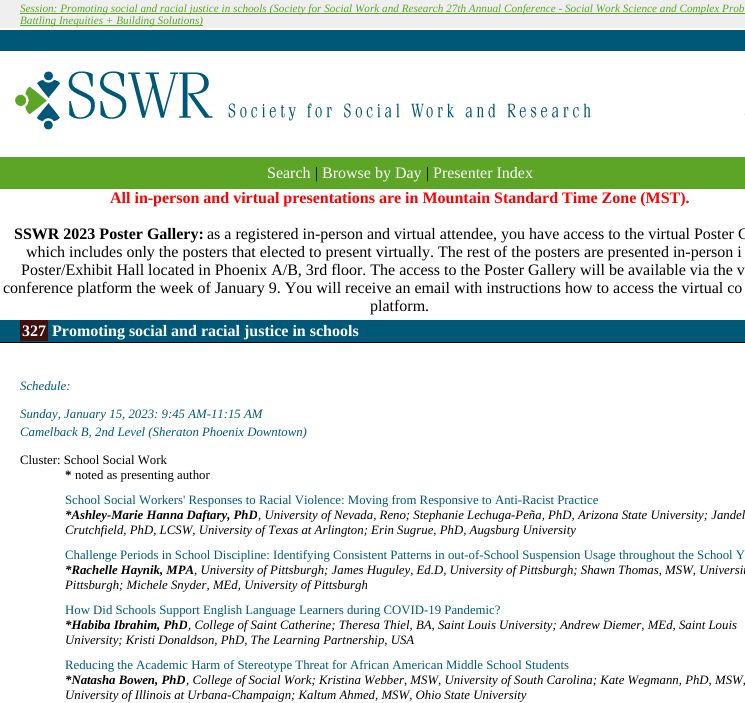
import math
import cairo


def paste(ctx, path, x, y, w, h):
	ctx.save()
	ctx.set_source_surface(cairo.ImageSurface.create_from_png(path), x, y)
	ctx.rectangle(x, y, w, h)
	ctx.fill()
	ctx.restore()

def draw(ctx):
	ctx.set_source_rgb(1, 1, 1)
	ctx.paint()
	ctx.set_source_rgb(0.937, 0.937, 0.937)
	ctx.rectangle(0, 0, 745, 28)
	ctx.fill()
	ctx.set_source_rgb(0.361, 0.647, 0.149)
	ctx.rectangle(20, 13, 725, 1)
	ctx.fill()
	ctx.select_font_face('Liberation Serif', cairo.FONT_SLANT_ITALIC)
	ctx.set_font_size(11.2)
	ctx.move_to(20, 12)
	ctx.show_text('Session: Promoting social and racial justice in schools (Society for Social Work and Research 27th Annual Conference - Social Work Science and Complex Probl')
	ctx.rectangle(20, 25, 183, 1)
	ctx.fill()
	ctx.move_to(20, 24)
	ctx.show_text('Battling Inequities + Building Solutions)')
	paste(ctx, 'media/1.png', 0, 30, 745, 100)
	ctx.rectangle(0, 157, 745, 32)
	ctx.fill()
	ctx.select_font_face('Liberation Serif')
	ctx.set_font_size(16)
	ctx.set_source_rgb(1, 1, 1)
	ctx.move_to(267, 178)
	ctx.show_text('Search')
	ctx.set_source_rgb(0, 0, 0)
	ctx.move_to(315, 178)
	ctx.show_text('|')
	ctx.set_source_rgb(1, 1, 1)
	ctx.move_to(322, 178)
	ctx.show_text('Browse by Day')
	ctx.set_source_rgb(0, 0, 0)
	ctx.move_to(426, 178)
	ctx.show_text('|')
	ctx.set_source_rgb(1, 1, 1)
	ctx.move_to(433, 178)
	ctx.show_text('Presenter Index')
	ctx.select_font_face('Liberation Serif', cairo.FONT_SLANT_NORMAL, cairo.FONT_WEIGHT_BOLD)
	ctx.set_source_rgb(1, 0, 0)
	ctx.move_to(110, 203)
	ctx.show_text('All in-person and virtual presentations are in Mountain Standard Time Zone (MST).')
	ctx.set_source_rgb(0, 0, 0)
	ctx.move_to(14, 239)
	ctx.show_text('SSWR 2023 Poster Gallery:')
	ctx.select_font_face('Liberation Serif')
	for x, y, s in [
		(207, 239, 'as a registered in-person and virtual attendee, you have access to the virtual Poster G'),
		(26, 257, 'which includes only the posters that elected to present virtually. The rest of the posters are presented in-person i'),
		(21, 275, 'Poster/Exhibit Hall located in Phoenix A/B, 3rd floor. The access to the Poster Gallery will be available via the v'),
		(3, 293, 'conference platform the week of January 9. You will receive an email with instructions how to access the virtual co'),
		(370, 311, 'platform.'),
	]:
		ctx.move_to(x, y)
		ctx.show_text(s)
	ctx.set_source_rgb(0, 0.345, 0.475)
	ctx.rectangle(0, 320, 745, 22)
	ctx.fill()
	ctx.set_source_rgb(0, 0, 0)
	ctx.rectangle(0, 342, 745, 1)
	ctx.fill()
	ctx.set_source_rgb(0.251, 0.063, 0.063)
	ctx.rectangle(20, 320, 28, 21)
	ctx.fill()
	ctx.select_font_face('Liberation Serif', cairo.FONT_SLANT_NORMAL, cairo.FONT_WEIGHT_BOLD)
	ctx.set_source_rgb(1, 1, 1)
	ctx.move_to(22, 336)
	ctx.show_text('327')
	ctx.move_to(52, 336)
	ctx.show_text('Promoting social and racial justice in schools')
	ctx.select_font_face('Liberation Serif', cairo.FONT_SLANT_ITALIC)
	ctx.set_font_size(12.8)
	ctx.set_source_rgb(0, 0.345, 0.475)
	for x, y, s in [
		(20, 390, 'Schedule:'),
		(20, 418, 'Sunday, January 15, 2023: 9:45 AM-11:15 AM'),
		(20, 436, 'Camelback B, 2nd Level (Sheraton Phoenix Downtown)'),
	]:
		ctx.move_to(x, y)
		ctx.show_text(s)
	ctx.select_font_face('Liberation Serif')
	ctx.set_source_rgb(0, 0, 0)
	ctx.move_to(20, 464)
	ctx.show_text('Cluster: School Social Work')
	ctx.select_font_face('Liberation Serif', cairo.FONT_SLANT_NORMAL, cairo.FONT_WEIGHT_BOLD)
	ctx.move_to(65, 479)
	ctx.show_text('*')
	ctx.select_font_face('Liberation Serif')
	ctx.move_to(75, 479)
	ctx.show_text('noted as presenting author')
	ctx.set_source_rgb(0, 0.345, 0.475)
	ctx.move_to(65, 504)
	ctx.show_text('School Social Workers\' Responses to Racial Violence: Moving from Responsive to Anti-Racist Practice')
	ctx.select_font_face('Liberation Serif', cairo.FONT_SLANT_ITALIC, cairo.FONT_WEIGHT_BOLD)
	ctx.set_source_rgb(0, 0, 0)
	ctx.move_to(65, 519)
	ctx.show_text('*Ashley-Marie Hanna Daftary, PhD')
	ctx.select_font_face('Liberation Serif', cairo.FONT_SLANT_ITALIC)
	ctx.move_to(258, 519)
	ctx.show_text(', University of Nevada, Reno; Stephanie Lechuga-Peña, PhD, Arizona State University; Jandel')
	ctx.move_to(65, 534)
	ctx.show_text('Crutchfield, PhD, LCSW, University of Texas at Arlington; Erin Sugrue, PhD, Augsburg University')
	ctx.select_font_face('Liberation Serif')
	ctx.set_source_rgb(0, 0.345, 0.475)
	ctx.move_to(65, 559)
	ctx.show_text('Challenge Periods in School Discipline: Identifying Consistent Patterns in out-of-School Suspension Usage throughout the School Y')
	ctx.select_font_face('Liberation Serif', cairo.FONT_SLANT_ITALIC, cairo.FONT_WEIGHT_BOLD)
	ctx.set_source_rgb(0, 0, 0)
	ctx.move_to(65, 574)
	ctx.show_text('*Rachelle Haynik, MPA')
	ctx.select_font_face('Liberation Serif', cairo.FONT_SLANT_ITALIC)
	ctx.move_to(194, 574)
	ctx.show_text(', University of Pittsburgh; James Huguley, Ed.D, University of Pittsburgh; Shawn Thomas, MSW, Universit')
	ctx.move_to(65, 589)
	ctx.show_text('Pittsburgh; Michele Snyder, MEd, University of Pittsburgh')
	ctx.select_font_face('Liberation Serif')
	ctx.set_source_rgb(0, 0.345, 0.475)
	ctx.move_to(65, 614)
	ctx.show_text('How Did Schools Support English Language Learners during COVID-19 Pandemic?')
	ctx.select_font_face('Liberation Serif', cairo.FONT_SLANT_ITALIC, cairo.FONT_WEIGHT_BOLD)
	ctx.set_source_rgb(0, 0, 0)
	ctx.move_to(65, 629)
	ctx.show_text('*Habiba Ibrahim, PhD')
	ctx.select_font_face('Liberation Serif', cairo.FONT_SLANT_ITALIC)
	ctx.move_to(188, 629)
	ctx.show_text(', College of Saint Catherine; Theresa Thiel, BA, Saint Louis University; Andrew Diemer, MEd, Saint Louis')
	ctx.move_to(65, 644)
	ctx.show_text('University; Kristi Donaldson, PhD, The Learning Partnership, USA')
	ctx.select_font_face('Liberation Serif')
	ctx.set_source_rgb(0, 0.345, 0.475)
	ctx.move_to(65, 669)
	ctx.show_text('Reducing the Academic Harm of Stereotype Threat for African American Middle School Students')
	ctx.select_font_face('Liberation Serif', cairo.FONT_SLANT_ITALIC, cairo.FONT_WEIGHT_BOLD)
	ctx.set_source_rgb(0, 0, 0)
	ctx.move_to(65, 684)
	ctx.show_text('*Natasha Bowen, PhD')
	ctx.select_font_face('Liberation Serif', cairo.FONT_SLANT_ITALIC)
	ctx.move_to(186, 684)
	ctx.show_text(', College of Social Work; Kristina Webber, MSW, University of South Carolina; Kate Wegmann, PhD, MSW,')
	ctx.move_to(65, 699)
	ctx.show_text('University of Illinois at Urbana-Champaign; Kaltum Ahmed, MSW, Ohio State University')


surface = cairo.ImageSurface(cairo.FORMAT_RGB24, 745, 703)
ctx = cairo.Context(surface)
options = cairo.FontOptions()
options.set_hint_metrics(cairo.HINT_METRICS_OFF)
options.set_hint_style(cairo.HINT_STYLE_NONE)
ctx.set_font_options(options)
ctx.set_miter_limit(4)
draw(ctx)
surface.write_to_png('image.png')
